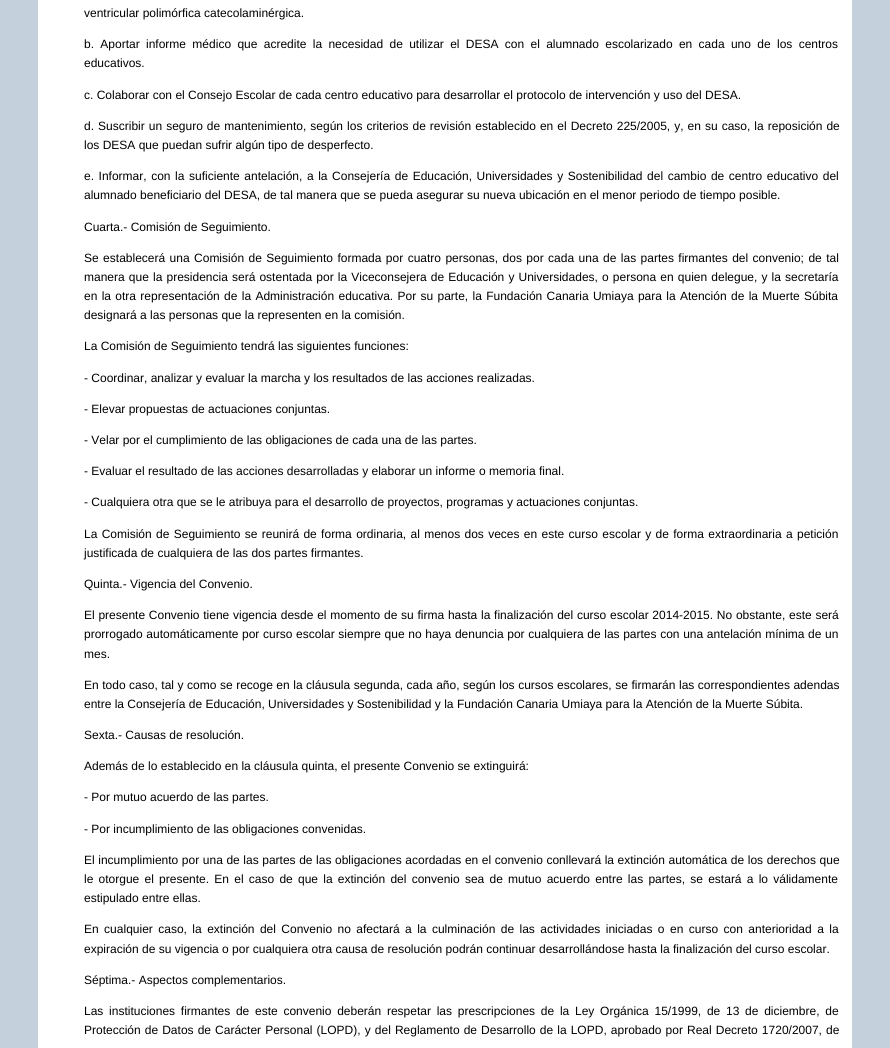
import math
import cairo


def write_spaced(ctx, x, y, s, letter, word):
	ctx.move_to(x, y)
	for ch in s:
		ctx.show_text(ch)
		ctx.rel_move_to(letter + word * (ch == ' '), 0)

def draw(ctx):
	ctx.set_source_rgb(0.769, 0.816, 0.863)
	ctx.paint()
	ctx.set_source_rgb(1, 1, 1)
	ctx.rectangle(38, 0, 814, 1048)
	ctx.fill()
	ctx.select_font_face('Liberation Sans')
	ctx.set_font_size(12)
	ctx.set_source_rgb(0, 0, 0)
	ctx.move_to(84, 17)
	ctx.show_text('ventricular polimórfica catecolaminérgica.')
	write_spaced(ctx, 84, 48, 'b. Aportar informe médico que acredite la necesidad de utilizar el DESA con el alumnado escolarizado en cada uno de los centros', 0, 3)
	ctx.move_to(84, 67)
	ctx.show_text('educativos.')
	ctx.move_to(84, 99)
	ctx.show_text('c. Colaborar con el Consejo Escolar de cada centro educativo para desarrollar el protocolo de intervención y uso del DESA.')
	write_spaced(ctx, 84, 130, 'd. Suscribir un seguro de mantenimiento, según los criterios de revisión establecido en el Decreto 225/2005, y, en su caso, la reposición de', 0, 0.7)
	ctx.move_to(84, 149)
	ctx.show_text('los DESA que puedan sufrir algún tipo de desperfecto.')
	write_spaced(ctx, 84, 180, 'e. Informar, con la suficiente antelación, a la Consejería de Educación, Universidades y Sostenibilidad del cambio de centro educativo del', 0, 1.25)
	ctx.move_to(84, 199)
	ctx.show_text('alumnado beneficiario del DESA, de tal manera que se pueda asegurar su nueva ubicación en el menor periodo de tiempo posible.')
	ctx.move_to(84, 231)
	ctx.show_text('Cuarta.- Comisión de Seguimiento.')
	write_spaced(ctx, 84, 262, 'Se establecerá una Comisión de Seguimiento formada por cuatro personas, dos por cada una de las partes firmantes del convenio; de tal', 0, 1.1)
	write_spaced(ctx, 84, 281, 'manera que la presidencia será ostentada por la Viceconsejera de Educación y Universidades, o persona en quien delegue, y la secretaría', 0, 0.8)
	write_spaced(ctx, 84, 300, 'en la otra representación de la Administración educativa. Por su parte, la Fundación Canaria Umiaya para la Atención de la Muerte Súbita', 0, 1)
	for x, y, s in [
		(84, 319, 'designará a las personas que la representen en la comisión.'),
		(84, 350, 'La Comisión de Seguimiento tendrá las siguientes funciones:'),
		(84, 382, '- Coordinar, analizar y evaluar la marcha y los resultados de las acciones realizadas.'),
		(84, 413, '- Elevar propuestas de actuaciones conjuntas.'),
		(84, 444, '- Velar por el cumplimiento de las obligaciones de cada una de las partes.'),
		(84, 475, '- Evaluar el resultado de las acciones desarrolladas y elaborar un informe o memoria final.'),
		(84, 506, '- Cualquiera otra que se le atribuya para el desarrollo de proyectos, programas y actuaciones conjuntas.'),
	]:
		ctx.move_to(x, y)
		ctx.show_text(s)
	write_spaced(ctx, 84, 538, 'La Comisión de Seguimiento se reunirá de forma ordinaria, al menos dos veces en este curso escolar y de forma extraordinaria a petición', 0, 1)
	ctx.move_to(84, 557)
	ctx.show_text('justificada de cualquiera de las dos partes firmantes.')
	ctx.move_to(84, 588)
	ctx.show_text('Quinta.- Vigencia del Convenio.')
	write_spaced(ctx, 84, 619, 'El presente Convenio tiene vigencia desde el momento de su firma hasta la finalización del curso escolar 2014-2015. No obstante, este será', 0, 0.4)
	write_spaced(ctx, 84, 638, 'prorrogado automáticamente por curso escolar siempre que no haya denuncia por cualquiera de las partes con una antelación mínima de un', 0, 0.3)
	ctx.move_to(84, 658)
	ctx.show_text('mes.')
	write_spaced(ctx, 84, 689, 'En todo caso, tal y como se recoge en la cláusula segunda, cada año, según los cursos escolares, se firmarán las correspondientes adendas', 0, 0.2)
	for x, y, s in [
		(84, 708, 'entre la Consejería de Educación, Universidades y Sostenibilidad y la Fundación Canaria Umiaya para la Atención de la Muerte Súbita.'),
		(84, 739, 'Sexta.- Causas de resolución.'),
		(84, 770, 'Además de lo establecido en la cláusula quinta, el presente Convenio se extinguirá:'),
		(84, 801, '- Por mutuo acuerdo de las partes.'),
		(84, 833, '- Por incumplimiento de las obligaciones convenidas.'),
	]:
		ctx.move_to(x, y)
		ctx.show_text(s)
	write_spaced(ctx, 84, 864, 'El incumplimiento por una de las partes de las obligaciones acordadas en el convenio conllevará la extinción automática de los derechos que', 0, 0.25)
	write_spaced(ctx, 84, 883, 'le otorgue el presente. En el caso de que la extinción del convenio sea de mutuo acuerdo entre las partes, se estará a lo válidamente', 0, 1.9)
	ctx.move_to(84, 902)
	ctx.show_text('estipulado entre ellas.')
	write_spaced(ctx, 84, 933, 'En cualquier caso, la extinción del Convenio no afectará a la culminación de las actividades iniciadas o en curso con anterioridad a la', 0, 2.1)
	ctx.move_to(84, 953)
	ctx.show_text('expiración de su vigencia o por cualquiera otra causa de resolución podrán continuar desarrollándose hasta la finalización del curso escolar.')
	ctx.move_to(84, 984)
	ctx.show_text('Séptima.- Aspectos complementarios.')
	write_spaced(ctx, 84, 1015, 'Las instituciones firmantes de este convenio deberán respetar las prescripciones de la Ley Orgánica 15/1999, de 13 de diciembre, de', 0, 2.4)
	write_spaced(ctx, 84, 1034, 'Protección de Datos de Carácter Personal (LOPD), y del Reglamento de Desarrollo de la LOPD, aprobado por Real Decreto 1720/2007, de', 0, 0.75)


surface = cairo.ImageSurface(cairo.FORMAT_RGB24, 890, 1048)
ctx = cairo.Context(surface)
options = cairo.FontOptions()
options.set_hint_metrics(cairo.HINT_METRICS_OFF)
options.set_hint_style(cairo.HINT_STYLE_NONE)
ctx.set_font_options(options)
ctx.set_miter_limit(4)
draw(ctx)
surface.write_to_png('image.png')
